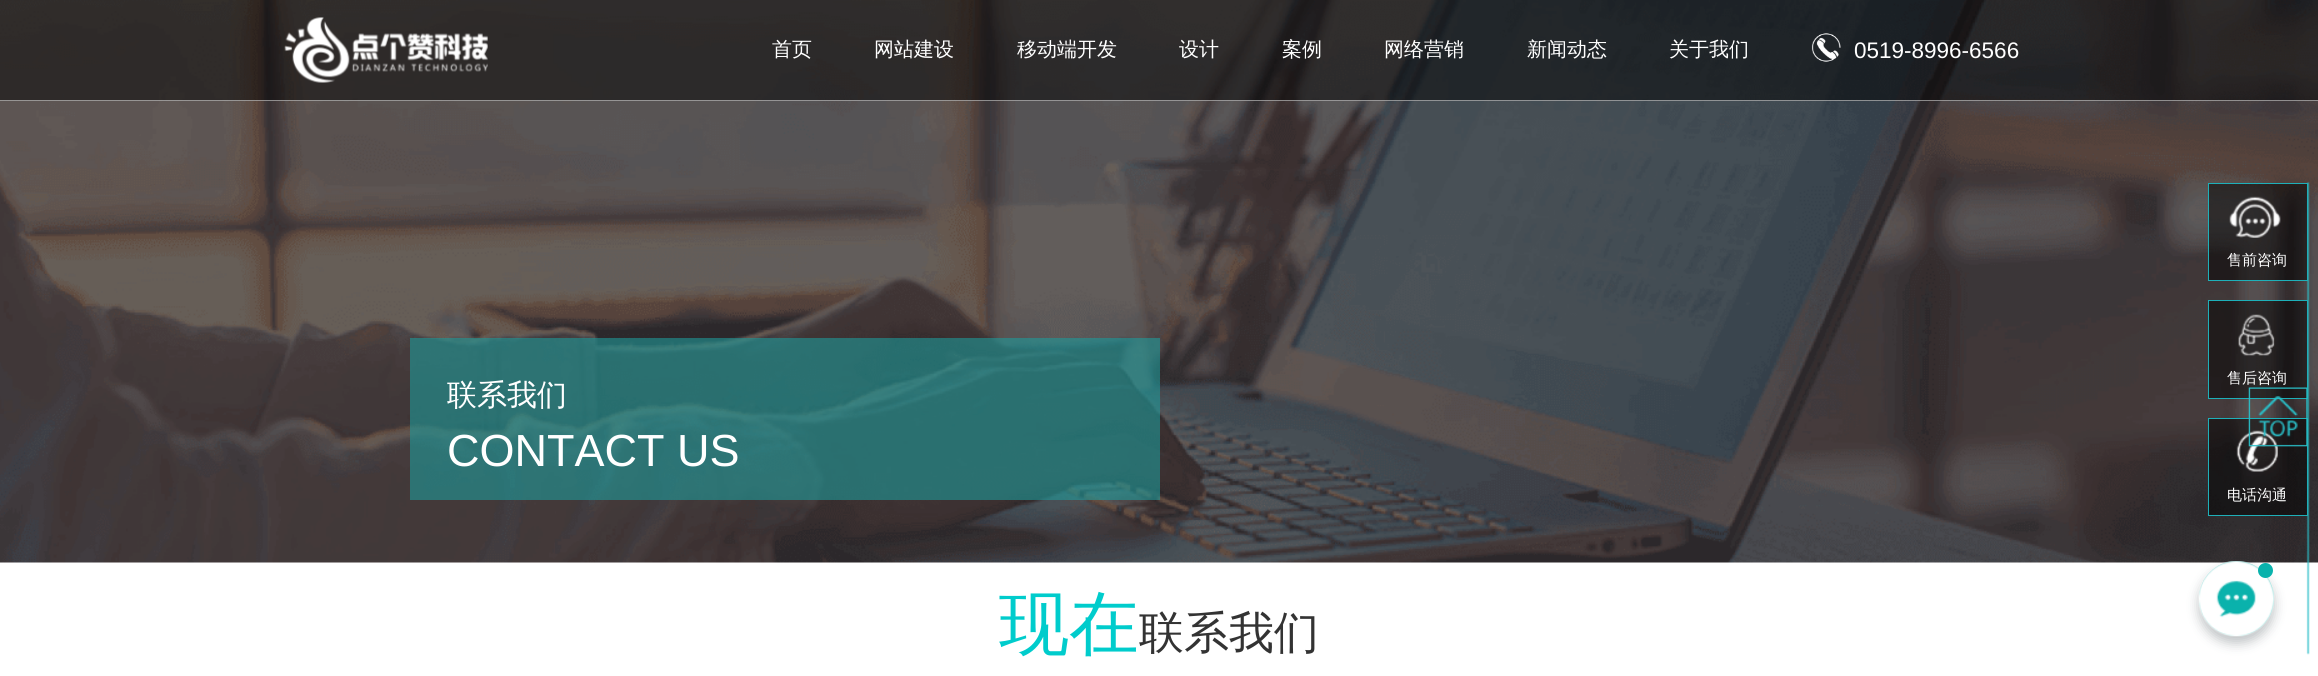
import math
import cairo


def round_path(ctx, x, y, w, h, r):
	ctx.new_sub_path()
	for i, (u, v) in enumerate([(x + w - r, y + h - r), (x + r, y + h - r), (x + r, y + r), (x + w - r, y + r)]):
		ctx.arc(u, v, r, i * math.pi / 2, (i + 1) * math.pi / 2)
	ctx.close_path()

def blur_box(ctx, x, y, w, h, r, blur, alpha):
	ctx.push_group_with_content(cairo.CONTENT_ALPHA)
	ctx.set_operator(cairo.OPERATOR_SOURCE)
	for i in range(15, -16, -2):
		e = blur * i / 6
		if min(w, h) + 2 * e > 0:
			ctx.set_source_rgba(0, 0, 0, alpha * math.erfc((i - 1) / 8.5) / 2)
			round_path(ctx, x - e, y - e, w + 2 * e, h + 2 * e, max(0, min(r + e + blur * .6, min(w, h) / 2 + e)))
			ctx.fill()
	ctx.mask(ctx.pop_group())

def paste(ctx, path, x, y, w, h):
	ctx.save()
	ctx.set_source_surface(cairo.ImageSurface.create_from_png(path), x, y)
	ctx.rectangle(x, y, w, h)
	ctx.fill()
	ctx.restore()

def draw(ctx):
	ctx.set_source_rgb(1, 1, 1)
	ctx.paint()
	paste(ctx, 'media/3.png', 0, 0, 2318, 563)
	ctx.set_source_rgba(0, 0, 0, 0.5)
	ctx.rectangle(0, 0, 2318, 101)
	ctx.fill()
	ctx.set_source_rgba(1, 1, 1, 0.5)
	ctx.rectangle(0, 100, 2318, 1)
	ctx.fill()
	paste(ctx, 'media/1.png', 284, 17, 204, 66)
	ctx.select_font_face('WenQuanYi Zen Hei Medium')
	ctx.set_font_size(20)
	ctx.set_source_rgb(1, 1, 1)
	for x, y, s in [
		(772, 56, '首页'),
		(874, 56, '网站建设'),
		(1017, 56, '移动端开发'),
		(1179, 56, '设计'),
		(1282, 56, '案例'),
		(1384, 56, '网络营销'),
		(1527, 56, '新闻动态'),
		(1669, 56, '关于我们'),
	]:
		ctx.move_to(x, y)
		ctx.show_text(s)
	paste(ctx, 'media/2.png', 1811, 33, 30, 29)
	ctx.select_font_face('Liberation Sans')
	ctx.set_font_size(22.5)
	ctx.move_to(1854, 58)
	ctx.show_text('0519-8996-6566')
	ctx.set_source_rgba(0.118, 0.6, 0.6, 0.6)
	ctx.rectangle(410, 338, 750, 162)
	ctx.fill()
	ctx.select_font_face('WenQuanYi Zen Hei Medium')
	ctx.set_font_size(30)
	ctx.set_source_rgb(1, 1, 1)
	ctx.move_to(447, 405)
	ctx.show_text('联系我们')
	ctx.select_font_face('Liberation Sans')
	ctx.set_font_size(45)
	ctx.move_to(447, 466)
	ctx.show_text('CONTACT US')
	paste(ctx, 'media/7.png', 2306, 182, 4, 473)
	ctx.set_source_rgba(0, 0, 0, 0.5)
	ctx.rectangle(2208.5, 183.5, 99, 97)
	ctx.fill_preserve()
	ctx.set_source_rgb(0.118, 0.69, 0.725)
	ctx.set_line_width(1)
	ctx.stroke()
	paste(ctx, 'media/4.png', 2229, 196, 52, 42)
	ctx.select_font_face('WenQuanYi Zen Hei Medium')
	ctx.set_font_size(15)
	ctx.set_source_rgb(1, 1, 1)
	ctx.move_to(2227, 265)
	ctx.show_text('售前咨询')
	ctx.set_source_rgba(0, 0, 0, 0.5)
	ctx.rectangle(2208.5, 300.5, 99, 98)
	ctx.fill_preserve()
	ctx.set_source_rgb(0.118, 0.69, 0.725)
	ctx.stroke()
	paste(ctx, 'media/5.png', 2238, 314, 37, 42)
	ctx.set_source_rgb(1, 1, 1)
	ctx.move_to(2227, 383)
	ctx.show_text('售后咨询')
	ctx.set_source_rgba(0, 0, 0, 0.5)
	ctx.rectangle(2208.5, 418.5, 99, 97)
	ctx.fill_preserve()
	ctx.set_source_rgb(0.118, 0.69, 0.725)
	ctx.stroke()
	paste(ctx, 'media/6.png', 2236, 430, 42, 42)
	ctx.set_source_rgb(1, 1, 1)
	ctx.move_to(2227, 500)
	ctx.show_text('电话沟通')
	paste(ctx, 'media/8.png', 2248, 387, 60, 60)
	ctx.set_font_size(70)
	ctx.set_source_rgb(0, 0.8, 0.8)
	ctx.move_to(999, 648)
	ctx.show_text('现在')
	ctx.set_font_size(45)
	ctx.set_source_rgb(0.2, 0.2, 0.2)
	ctx.move_to(1139, 648)
	ctx.show_text('联系我们')
	ctx.save()
	ctx.set_fill_rule(cairo.FILL_RULE_EVEN_ODD)
	ctx.new_path()
	ctx.move_to(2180, 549)
	ctx.line_to(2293, 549)
	ctx.line_to(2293, 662)
	ctx.line_to(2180, 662)
	ctx.close_path()
	ctx.move_to(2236.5, 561)
	ctx.curve_to(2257, 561, 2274, 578, 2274, 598.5)
	ctx.curve_to(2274, 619, 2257, 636, 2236.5, 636)
	ctx.curve_to(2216, 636, 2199, 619, 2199, 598.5)
	ctx.curve_to(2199, 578, 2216, 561, 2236.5, 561)
	ctx.close_path()
	ctx.clip()
	ctx.set_source_rgb(0.137, 0.196, 0.22)
	blur_box(ctx, 2199, 568, 75, 75, 37.5, 6, 0.3)
	ctx.restore()
	ctx.set_source_rgba(0.043, 0.698, 0.671, 0.25)
	ctx.arc(2236.5, 598.5, 37.5, 0, 2 * math.pi)
	ctx.fill()
	ctx.arc(2236.5, 598.5, 37.5, 0, 2 * math.pi)
	ctx.fill()
	ctx.arc(2236.5, 598.5, 37.5, 0, 2 * math.pi)
	ctx.fill()
	paste(ctx, 'media/9.png', 2198, 561, 76, 76)
	ctx.set_source_rgb(0.039, 0.698, 0.675)
	ctx.arc(2265.5, 570.5, 7.5, 0, 2 * math.pi)
	ctx.fill()


surface = cairo.ImageSurface(cairo.FORMAT_RGB24, 2318, 676)
ctx = cairo.Context(surface)
options = cairo.FontOptions()
options.set_hint_metrics(cairo.HINT_METRICS_OFF)
options.set_hint_style(cairo.HINT_STYLE_NONE)
ctx.set_font_options(options)
ctx.set_miter_limit(4)
draw(ctx)
surface.write_to_png('image.png')
